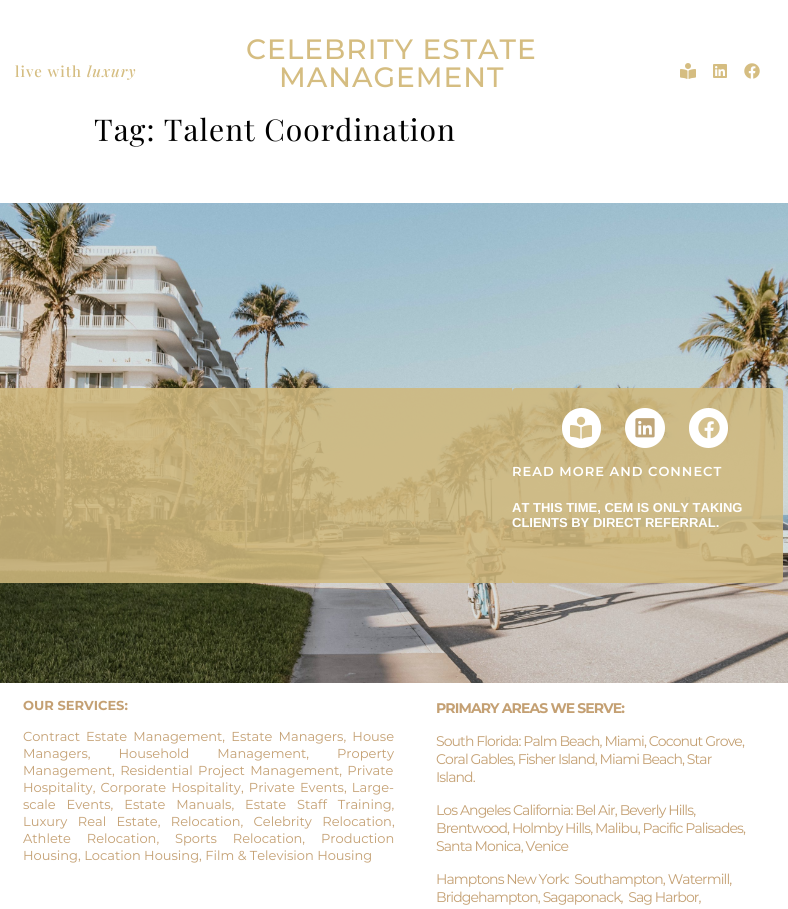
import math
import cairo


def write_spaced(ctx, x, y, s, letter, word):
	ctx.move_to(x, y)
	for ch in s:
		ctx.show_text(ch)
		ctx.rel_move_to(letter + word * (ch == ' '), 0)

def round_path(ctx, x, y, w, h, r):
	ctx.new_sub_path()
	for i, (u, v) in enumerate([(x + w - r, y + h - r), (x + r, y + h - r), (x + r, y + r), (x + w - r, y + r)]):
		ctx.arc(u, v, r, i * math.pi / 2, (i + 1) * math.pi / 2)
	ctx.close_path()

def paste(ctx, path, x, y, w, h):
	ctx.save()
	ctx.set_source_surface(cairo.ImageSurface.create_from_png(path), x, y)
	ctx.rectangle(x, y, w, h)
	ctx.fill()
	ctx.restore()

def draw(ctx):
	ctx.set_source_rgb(1, 1, 1)
	ctx.paint()
	ctx.select_font_face('Playfair Display Medium')
	ctx.set_font_size(15)
	ctx.set_source_rgb(0.835, 0.741, 0.506)
	write_spaced(ctx, 15, 77, 'live with', 1, 0)
	ctx.select_font_face('Playfair Display Medium', cairo.FONT_SLANT_ITALIC)
	write_spaced(ctx, 87, 77, 'luxury', 1, 0)
	ctx.select_font_face('Montserrat Medium')
	ctx.set_font_size(28)
	write_spaced(ctx, 246, 59, 'CELEBRITY ESTATE', 1, 0)
	write_spaced(ctx, 279, 87, 'MANAGEMENT', 1, 0)
	paste(ctx, 'media/1.png', 680, 63, 16, 16)
	paste(ctx, 'media/2.png', 713, 64, 14, 14)
	paste(ctx, 'media/3.png', 744, 63, 16, 16)
	ctx.select_font_face('Playfair Display')
	ctx.set_font_size(30)
	ctx.set_source_rgb(0, 0, 0)
	write_spaced(ctx, 94, 141, 'Tag: Talent Coordination', 1, 0)
	paste(ctx, 'media/4.png', 0, 203, 788, 480)
	ctx.set_source_rgba(0.812, 0.722, 0.486, 0.87)
	ctx.rectangle(0, 388, 260, 195)
	ctx.fill()
	ctx.rectangle(260, 388, 252, 195)
	ctx.fill()
	round_path(ctx, 512, 388, 271, 195, 4)
	ctx.fill()
	ctx.set_source_rgb(1, 1, 1)
	round_path(ctx, 562, 408, 39, 40, 19.5)
	ctx.fill()
	paste(ctx, 'media/5.png', 570, 416, 22, 23)
	ctx.arc(645, 428, 20, 0, 2 * math.pi)
	ctx.fill()
	paste(ctx, 'media/6.png', 635, 418, 20, 20)
	round_path(ctx, 689, 408, 39, 40, 19.5)
	ctx.fill()
	paste(ctx, 'media/7.png', 698, 417, 22, 22)
	ctx.select_font_face('Montserrat SemiBold')
	ctx.set_font_size(13)
	write_spaced(ctx, 512, 476, 'READ MORE AND CONNECT', 1, 0)
	ctx.select_font_face('Liberation Sans', cairo.FONT_SLANT_NORMAL, cairo.FONT_WEIGHT_BOLD)
	ctx.move_to(512, 512)
	ctx.show_text('AT THIS TIME, CEM IS ONLY TAKING')
	ctx.move_to(512, 527)
	ctx.show_text('CLIENTS BY DIRECT REFERRAL.')
	ctx.select_font_face('Montserrat', cairo.FONT_SLANT_NORMAL, cairo.FONT_WEIGHT_BOLD)
	ctx.set_source_rgb(0.769, 0.627, 0.451)
	ctx.move_to(23, 710)
	ctx.show_text('OUR SERVICES:')
	ctx.select_font_face('Montserrat')
	write_spaced(ctx, 23, 741, 'Contract Estate Management, Estate Managers, House', 0, 2.75)
	write_spaced(ctx, 23, 758, 'Managers, Household Management, Property', 0, 24.5)
	write_spaced(ctx, 23, 775, 'Management, Residential Project Management, Private', 0, 2)
	write_spaced(ctx, 23, 792, 'Hospitality, Corporate Hospitality, Private Events, Large-', 0, 1.75)
	write_spaced(ctx, 23, 809, 'scale Events, Estate Manuals, Estate Staff Training,', 0, 7.5)
	write_spaced(ctx, 23, 826, 'Luxury Real Estate, Relocation, Celebrity Relocation,', 0, 7)
	write_spaced(ctx, 23, 843, 'Athlete Relocation, Sports Relocation, Production', 0, 12.5)
	ctx.move_to(23, 860)
	ctx.show_text('Housing, Location Housing, Film & Television Housing')
	ctx.select_font_face('Montserrat', cairo.FONT_SLANT_NORMAL, cairo.FONT_WEIGHT_BOLD)
	ctx.set_font_size(14)
	write_spaced(ctx, 436, 713, 'PRIMARY AREAS WE SERVE:', -0.9, 0)
	ctx.select_font_face('Montserrat')
	for x, y, s in [
		(436, 746, 'South Florida: Palm Beach, Miami, Coconut Grove,'),
		(436, 764, 'Coral Gables, Fisher Island, Miami Beach, Star'),
		(436, 782, 'Island.'),
		(436, 815, 'Los Angeles California: Bel Air, Beverly Hills,'),
		(436, 833, 'Brentwood, Holmby Hills, Malibu, Pacific Palisades,'),
		(436, 851, 'Santa Monica, Venice'),
		(436, 884, 'Hamptons New York:  Southampton, Watermill,'),
		(436, 902, 'Bridgehampton, Sagaponack,  Sag Harbor,'),
	]:
		write_spaced(ctx, x, y, s, -0.9, 0)


surface = cairo.ImageSurface(cairo.FORMAT_RGB24, 788, 909)
ctx = cairo.Context(surface)
options = cairo.FontOptions()
options.set_hint_metrics(cairo.HINT_METRICS_OFF)
options.set_hint_style(cairo.HINT_STYLE_NONE)
ctx.set_font_options(options)
ctx.set_miter_limit(4)
draw(ctx)
surface.write_to_png('image.png')
